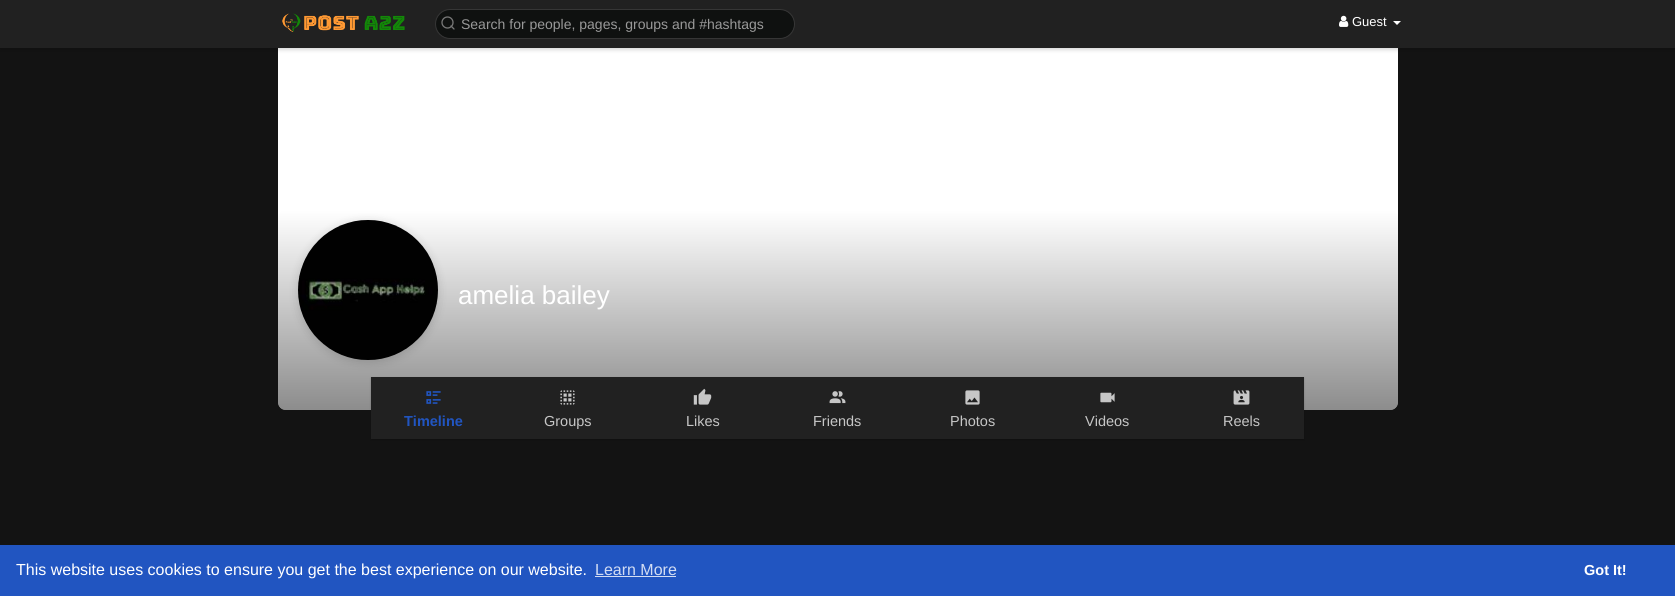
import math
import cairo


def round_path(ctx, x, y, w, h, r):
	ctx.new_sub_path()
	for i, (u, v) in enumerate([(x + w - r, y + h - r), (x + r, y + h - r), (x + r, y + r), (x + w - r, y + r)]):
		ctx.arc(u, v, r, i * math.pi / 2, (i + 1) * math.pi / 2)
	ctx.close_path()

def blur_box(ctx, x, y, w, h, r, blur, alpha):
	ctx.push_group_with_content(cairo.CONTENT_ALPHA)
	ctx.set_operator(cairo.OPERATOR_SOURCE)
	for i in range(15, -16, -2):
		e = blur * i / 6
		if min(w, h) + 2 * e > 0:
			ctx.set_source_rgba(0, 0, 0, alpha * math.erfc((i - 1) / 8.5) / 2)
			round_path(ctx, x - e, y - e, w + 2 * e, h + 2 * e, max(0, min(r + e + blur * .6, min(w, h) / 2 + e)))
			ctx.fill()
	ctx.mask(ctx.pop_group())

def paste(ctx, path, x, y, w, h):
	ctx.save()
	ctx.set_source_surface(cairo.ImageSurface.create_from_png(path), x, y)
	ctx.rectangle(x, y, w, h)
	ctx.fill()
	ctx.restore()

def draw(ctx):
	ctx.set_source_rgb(0.075, 0.075, 0.075)
	ctx.paint()
	ctx.set_source_rgb(1, 1, 1)
	ctx.new_path()
	ctx.move_to(278, 45)
	ctx.line_to(1398, 45)
	ctx.line_to(1398, 402)
	ctx.curve_to(1398, 406.5, 1394.5, 410, 1390, 410)
	ctx.line_to(286, 410)
	ctx.curve_to(281.5, 410, 278, 406.5, 278, 402)
	ctx.close_path()
	ctx.fill()
	ctx.set_source_rgb(0, 0, 0)
	blur_box(ctx, 0, 2, 1675, 48, 0, 2, 0.15)
	ctx.set_source_rgb(0.129, 0.129, 0.129)
	ctx.rectangle(0, 0, 1675, 48)
	ctx.fill()
	paste(ctx, 'media/1.png', 282, 13, 123, 19)
	ctx.set_source_rgb(0.059, 0.067, 0.063)
	round_path(ctx, 435.5, 9.5, 359, 29, 14.5)
	ctx.fill_preserve()
	ctx.set_source_rgb(0.212, 0.212, 0.212)
	ctx.set_line_width(1)
	ctx.stroke()
	ctx.arc(447.5, 22.5, 5.5, 0, 2 * math.pi)
	ctx.set_source_rgb(0.471, 0.471, 0.471)
	ctx.set_line_width(1.3)
	ctx.stroke()
	ctx.new_path()
	ctx.move_to(454, 29)
	ctx.line_to(451, 26)
	ctx.set_line_cap(cairo.LINE_CAP_ROUND)
	ctx.set_line_join(cairo.LINE_JOIN_ROUND)
	ctx.stroke()
	ctx.select_font_face('Liberation Sans')
	ctx.set_font_size(14)
	ctx.set_source_rgb(0.6, 0.6, 0.6)
	ctx.move_to(461, 29)
	ctx.show_text('Search for people, pages, groups and #hashtags')
	paste(ctx, 'media/2.png', 1339, 15, 10, 12)
	ctx.set_font_size(13)
	ctx.set_source_rgb(1, 1, 1)
	ctx.move_to(1352, 26)
	ctx.show_text('Guest')
	ctx.new_path()
	ctx.move_to(1393, 21)
	ctx.line_to(1401, 21)
	ctx.line_to(1397, 25)
	ctx.close_path()
	ctx.fill()
	gradient = cairo.LinearGradient(838, 210, 838, 410)
	gradient.add_color_stop_rgba(0, 0, 0, 0, 0)
	gradient.add_color_stop_rgba(1, 0, 0, 0, 0.45)
	ctx.set_source(gradient)
	round_path(ctx, 278, 210, 1120, 200, 8)
	ctx.fill()
	ctx.set_source_rgb(0, 0, 0)
	blur_box(ctx, 371, 378, 933, 62, 0, 1, 0.2)
	ctx.set_source_rgb(0.129, 0.129, 0.129)
	ctx.rectangle(371, 377, 933, 62)
	ctx.fill()
	ctx.set_source_rgb(0, 0, 0)
	blur_box(ctx, 298, 222, 140, 140, 70, 5, 0.15)
	paste(ctx, 'media/3.png', 298, 220, 140, 140)
	ctx.set_font_size(26)
	ctx.set_source_rgb(1, 1, 1)
	ctx.move_to(458, 304)
	ctx.show_text('amelia bailey')
	paste(ctx, 'media/4.png', 426, 391, 15, 13)
	ctx.select_font_face('Liberation Sans', cairo.FONT_SLANT_NORMAL, cairo.FONT_WEIGHT_BOLD)
	ctx.set_font_size(14.5)
	ctx.set_source_rgb(0.129, 0.333, 0.757)
	ctx.move_to(404, 426)
	ctx.show_text('Timeline')
	paste(ctx, 'media/5.png', 560, 390, 15, 15)
	ctx.select_font_face('Liberation Sans')
	ctx.set_source_rgb(0.776, 0.776, 0.776)
	ctx.move_to(544, 426)
	ctx.show_text('Groups')
	paste(ctx, 'media/6.png', 693, 388, 19, 17)
	ctx.move_to(686, 426)
	ctx.show_text('Likes')
	paste(ctx, 'media/7.png', 829, 391, 17, 13)
	ctx.move_to(813, 426)
	ctx.show_text('Friends')
	paste(ctx, 'media/8.png', 965, 390, 15, 15)
	ctx.move_to(950, 426)
	ctx.show_text('Photos')
	paste(ctx, 'media/9.png', 1100, 392, 15, 11)
	ctx.move_to(1085, 426)
	ctx.show_text('Videos')
	paste(ctx, 'media/10.png', 1233, 390, 17, 15)
	ctx.move_to(1223, 426)
	ctx.show_text('Reels')
	ctx.set_source_rgb(0.129, 0.333, 0.757)
	ctx.rectangle(0, 545, 1675, 51)
	ctx.fill()
	ctx.set_font_size(16)
	ctx.set_source_rgb(1, 1, 1)
	ctx.move_to(16, 575)
	ctx.show_text('This website uses cookies to ensure you get the best experience on our website.')
	ctx.set_source_rgb(0.827, 0.867, 0.953)
	ctx.move_to(595, 575)
	ctx.show_text('Learn More')
	ctx.rectangle(595, 576, 81, 1)
	ctx.fill()
	ctx.select_font_face('Liberation Sans', cairo.FONT_SLANT_NORMAL, cairo.FONT_WEIGHT_BOLD)
	ctx.set_font_size(14.5)
	ctx.set_source_rgb(1, 1, 1)
	ctx.move_to(1584, 575)
	ctx.show_text('Got It!')


surface = cairo.ImageSurface(cairo.FORMAT_RGB24, 1675, 596)
ctx = cairo.Context(surface)
options = cairo.FontOptions()
options.set_hint_metrics(cairo.HINT_METRICS_OFF)
options.set_hint_style(cairo.HINT_STYLE_NONE)
ctx.set_font_options(options)
ctx.set_miter_limit(4)
draw(ctx)
surface.write_to_png('image.png')
